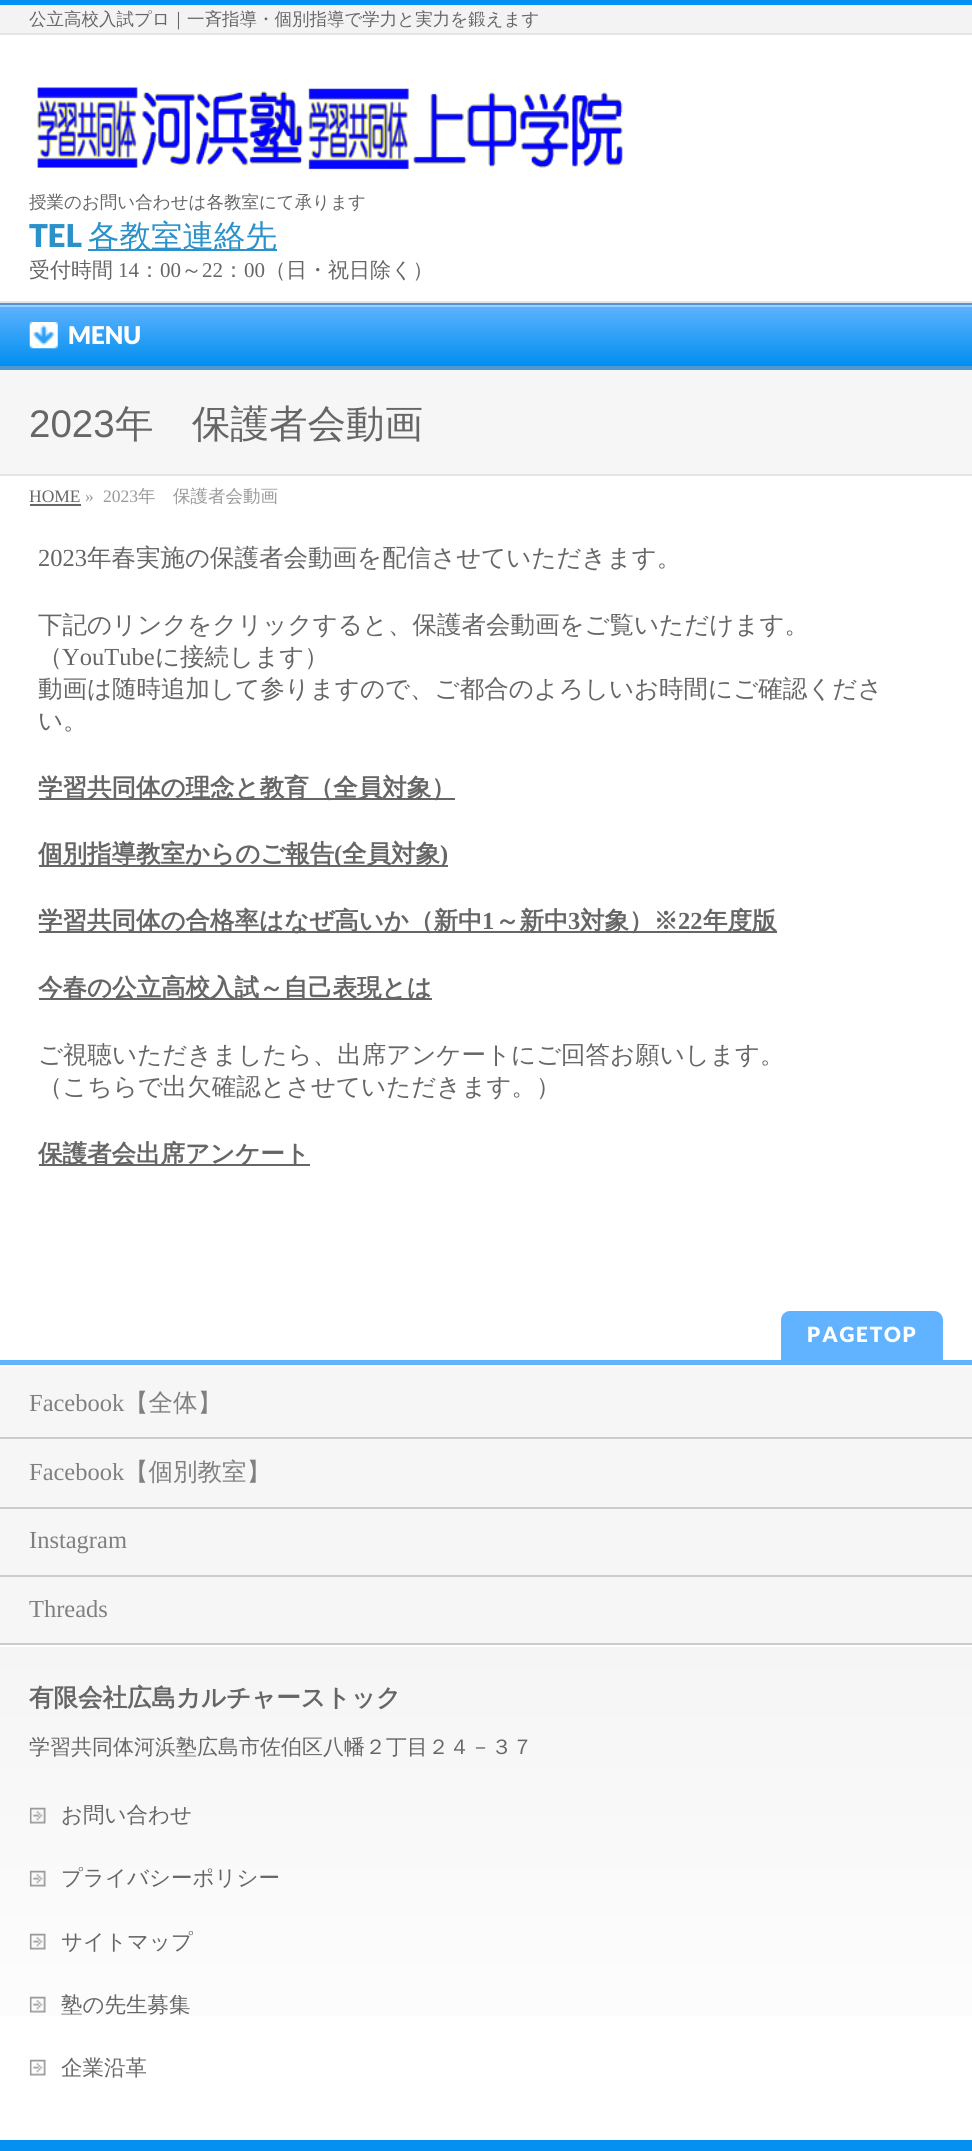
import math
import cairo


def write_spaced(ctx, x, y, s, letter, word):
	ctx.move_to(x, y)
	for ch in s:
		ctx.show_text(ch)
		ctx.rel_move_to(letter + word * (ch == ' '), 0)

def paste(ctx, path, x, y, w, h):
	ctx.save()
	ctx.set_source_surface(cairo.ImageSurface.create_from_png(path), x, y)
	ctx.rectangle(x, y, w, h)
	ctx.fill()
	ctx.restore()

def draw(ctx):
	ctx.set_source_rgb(1, 1, 1)
	ctx.paint()
	ctx.set_source_rgb(0.953, 0.953, 0.953)
	ctx.rectangle(0, 5, 972, 28)
	ctx.fill()
	ctx.set_source_rgb(0.016, 0.565, 0.941)
	ctx.rectangle(0, 0, 972, 5)
	ctx.fill()
	ctx.select_font_face('WenQuanYi Zen Hei Medium')
	ctx.set_font_size(17.5)
	ctx.set_source_rgb(0.4, 0.4, 0.4)
	ctx.move_to(29, 25)
	ctx.show_text('公立高校入試プロ｜一斉指導・個別指導で学力と実力を鍛えます')
	ctx.set_source_rgb(0.894, 0.894, 0.894)
	ctx.rectangle(0, 33, 972, 2)
	ctx.fill()
	ctx.rectangle(0, 301, 972, 2)
	ctx.fill()
	paste(ctx, 'media/1.png', 37, 87, 586, 83)
	ctx.set_source_rgb(0.4, 0.4, 0.4)
	ctx.move_to(29, 208)
	ctx.show_text('授業のお問い合わせは各教室にて承ります')
	ctx.select_font_face('Lato Black')
	ctx.set_font_size(31.5)
	ctx.set_source_rgb(0.169, 0.569, 0.796)
	ctx.move_to(29, 247)
	ctx.show_text('TEL')
	ctx.rectangle(88, 249, 189, 2)
	ctx.fill()
	ctx.select_font_face('WenQuanYi Zen Hei Medium')
	ctx.move_to(88, 247)
	ctx.show_text('各教室連絡先')
	ctx.set_font_size(21)
	ctx.set_source_rgb(0.4, 0.4, 0.4)
	ctx.move_to(29, 277)
	ctx.show_text('受付時間')
	ctx.select_font_face('Liberation Serif')
	ctx.move_to(118, 277)
	ctx.show_text('14')
	ctx.select_font_face('WenQuanYi Zen Hei Medium')
	ctx.move_to(139, 277)
	ctx.show_text('：')
	ctx.select_font_face('Liberation Serif')
	ctx.move_to(160, 277)
	ctx.show_text('00')
	ctx.select_font_face('WenQuanYi Zen Hei Medium')
	ctx.move_to(181, 277)
	ctx.show_text('～')
	ctx.select_font_face('Liberation Serif')
	ctx.move_to(202, 277)
	ctx.show_text('22')
	ctx.select_font_face('WenQuanYi Zen Hei Medium')
	ctx.move_to(223, 277)
	ctx.show_text('：')
	ctx.select_font_face('Liberation Serif')
	ctx.move_to(244, 277)
	ctx.show_text('00')
	ctx.select_font_face('WenQuanYi Zen Hei Medium')
	ctx.move_to(265, 277)
	ctx.show_text('（日・祝日除く）')
	gradient = cairo.LinearGradient(487, 304, 487, 366)
	gradient.add_color_stop_rgba(0, 0.38, 0.702, 1, 1)
	gradient.add_color_stop_rgba(1, 0, 0.561, 0.937, 1)
	ctx.set_source(gradient)
	ctx.rectangle(0, 307, 972, 59)
	ctx.fill()
	ctx.set_source_rgb(0.62, 0.82, 1)
	ctx.rectangle(0, 305, 972, 2)
	ctx.fill()
	ctx.set_source_rgb(0.318, 0.592, 0.835)
	ctx.rectangle(0, 303, 972, 2)
	ctx.rectangle(0, 366, 972, 4)
	ctx.fill()
	paste(ctx, 'media/2.png', 29, 322, 29, 27)
	ctx.select_font_face('Lato Black')
	ctx.set_font_size(24.5)
	ctx.set_source_rgb(1, 1, 1)
	ctx.move_to(68, 344)
	ctx.show_text('MENU')
	ctx.set_source_rgb(0.961, 0.961, 0.961)
	ctx.rectangle(0, 370, 972, 104)
	ctx.fill()
	ctx.set_source_rgb(0.898, 0.898, 0.898)
	ctx.rectangle(0, 474, 972, 2)
	ctx.fill()
	ctx.select_font_face('Liberation Sans')
	ctx.set_font_size(38.5)
	ctx.set_source_rgb(0.4, 0.4, 0.4)
	ctx.move_to(29, 437)
	ctx.show_text('2023')
	ctx.select_font_face('WenQuanYi Zen Hei Medium')
	ctx.move_to(115, 437)
	ctx.show_text('年　保護者会動画')
	ctx.select_font_face('Liberation Serif')
	ctx.set_font_size(17.5)
	ctx.move_to(29, 502)
	ctx.show_text('HOME')
	ctx.rectangle(30, 504, 51, 2)
	ctx.fill()
	ctx.set_source_rgb(0.6, 0.6, 0.6)
	ctx.move_to(85, 502)
	ctx.show_text('»')
	ctx.move_to(103, 502)
	ctx.show_text('2023')
	ctx.select_font_face('WenQuanYi Zen Hei Medium')
	ctx.move_to(138, 502)
	ctx.show_text('年　保護者会動画')
	ctx.select_font_face('Liberation Serif')
	ctx.set_font_size(24.5)
	ctx.set_source_rgb(0.4, 0.4, 0.4)
	ctx.move_to(38, 566)
	ctx.show_text('2023')
	ctx.select_font_face('WenQuanYi Zen Hei Medium')
	for x, y, s in [
		(87, 566, '年春実施の保護者会動画を配信させていただきます。'),
		(38, 633, '下記のリンクをクリックすると、保護者会動画をご覧いただけます。'),
		(38, 665, '（'),
	]:
		ctx.move_to(x, y)
		ctx.show_text(s)
	ctx.select_font_face('Liberation Serif')
	ctx.move_to(62, 665)
	ctx.show_text('YouTube')
	ctx.select_font_face('WenQuanYi Zen Hei Medium')
	for x, y, s in [
		(155, 665, 'に接続します）'),
		(38, 697, '動画は随時追加して参りますので、ご都合のよろしいお時間にご確認くださ'),
		(38, 729, 'い。'),
	]:
		ctx.move_to(x, y)
		ctx.show_text(s)
	ctx.rectangle(39, 798, 416, 2)
	ctx.fill()
	ctx.select_font_face('WenQuanYi Zen Hei', cairo.FONT_SLANT_NORMAL, cairo.FONT_WEIGHT_BOLD)
	ctx.move_to(38, 796)
	ctx.show_text('学習共同体の理念と教育（全員対象）')
	ctx.rectangle(39, 865, 409, 2)
	ctx.fill()
	ctx.move_to(38, 862)
	ctx.show_text('個別指導教室からのご報告')
	ctx.select_font_face('Liberation Serif', cairo.FONT_SLANT_NORMAL, cairo.FONT_WEIGHT_BOLD)
	ctx.move_to(334, 862)
	ctx.show_text('(')
	ctx.select_font_face('WenQuanYi Zen Hei', cairo.FONT_SLANT_NORMAL, cairo.FONT_WEIGHT_BOLD)
	ctx.move_to(342, 862)
	ctx.show_text('全員対象')
	ctx.select_font_face('Liberation Serif', cairo.FONT_SLANT_NORMAL, cairo.FONT_WEIGHT_BOLD)
	ctx.move_to(440, 862)
	ctx.show_text(')')
	ctx.rectangle(39, 931, 738, 2)
	ctx.fill()
	ctx.select_font_face('WenQuanYi Zen Hei', cairo.FONT_SLANT_NORMAL, cairo.FONT_WEIGHT_BOLD)
	ctx.move_to(38, 929)
	ctx.show_text('学習共同体の合格率はなぜ高いか（新中')
	ctx.select_font_face('Liberation Serif', cairo.FONT_SLANT_NORMAL, cairo.FONT_WEIGHT_BOLD)
	ctx.move_to(482, 929)
	ctx.show_text('1')
	ctx.select_font_face('WenQuanYi Zen Hei', cairo.FONT_SLANT_NORMAL, cairo.FONT_WEIGHT_BOLD)
	ctx.move_to(495, 929)
	ctx.show_text('～新中')
	ctx.select_font_face('Liberation Serif', cairo.FONT_SLANT_NORMAL, cairo.FONT_WEIGHT_BOLD)
	ctx.move_to(568, 929)
	ctx.show_text('3')
	ctx.select_font_face('WenQuanYi Zen Hei', cairo.FONT_SLANT_NORMAL, cairo.FONT_WEIGHT_BOLD)
	ctx.move_to(580, 929)
	ctx.show_text('対象）※')
	ctx.select_font_face('Liberation Serif', cairo.FONT_SLANT_NORMAL, cairo.FONT_WEIGHT_BOLD)
	ctx.move_to(678, 929)
	ctx.show_text('22')
	ctx.select_font_face('WenQuanYi Zen Hei', cairo.FONT_SLANT_NORMAL, cairo.FONT_WEIGHT_BOLD)
	ctx.move_to(703, 929)
	ctx.show_text('年度版')
	ctx.rectangle(39, 998, 393, 2)
	ctx.fill()
	ctx.move_to(38, 996)
	ctx.show_text('今春の公立高校入試～自己表現とは')
	ctx.select_font_face('WenQuanYi Zen Hei Medium')
	ctx.move_to(38, 1063)
	ctx.show_text('ご視聴いただきましたら、出席アンケートにご回答お願いします。')
	ctx.move_to(38, 1095)
	ctx.show_text('（こちらで出欠確認とさせていただきます。）')
	ctx.rectangle(39, 1164, 271, 2)
	ctx.fill()
	ctx.select_font_face('WenQuanYi Zen Hei', cairo.FONT_SLANT_NORMAL, cairo.FONT_WEIGHT_BOLD)
	ctx.move_to(38, 1162)
	ctx.show_text('保護者会出席アンケート')
	ctx.set_source_rgb(0.38, 0.702, 1)
	ctx.new_path()
	ctx.move_to(790, 1311)
	ctx.line_to(934, 1311)
	ctx.curve_to(939, 1311, 943, 1315, 943, 1320)
	ctx.line_to(943, 1360)
	ctx.line_to(781, 1360)
	ctx.line_to(781, 1320)
	ctx.curve_to(781, 1315, 785, 1311, 790, 1311)
	ctx.close_path()
	ctx.fill()
	ctx.select_font_face('Lato Black')
	ctx.set_font_size(21)
	ctx.set_source_rgb(1, 1, 1)
	write_spaced(ctx, 807, 1342, 'PAGETOP', 1.75, 0)
	ctx.set_source_rgb(0.961, 0.961, 0.961)
	ctx.rectangle(0, 1367, 972, 276)
	ctx.fill()
	ctx.set_source_rgb(0.38, 0.702, 1)
	ctx.rectangle(0, 1360, 972, 5)
	ctx.fill()
	ctx.set_source_rgb(0.8, 0.8, 0.8)
	ctx.rectangle(0, 1437, 972, 2)
	ctx.fill()
	ctx.select_font_face('Liberation Serif')
	ctx.set_font_size(24.5)
	ctx.set_source_rgb(0.502, 0.502, 0.502)
	ctx.move_to(29, 1411)
	ctx.show_text('Facebook')
	ctx.select_font_face('WenQuanYi Zen Hei Medium')
	ctx.move_to(124, 1411)
	ctx.show_text('【全体】')
	ctx.set_source_rgb(0.8, 0.8, 0.8)
	ctx.rectangle(0, 1507, 972, 2)
	ctx.fill()
	ctx.select_font_face('Liberation Serif')
	ctx.set_source_rgb(0.502, 0.502, 0.502)
	ctx.move_to(29, 1480)
	ctx.show_text('Facebook')
	ctx.select_font_face('WenQuanYi Zen Hei Medium')
	ctx.move_to(124, 1480)
	ctx.show_text('【個別教室】')
	ctx.set_source_rgb(0.8, 0.8, 0.8)
	ctx.rectangle(0, 1575, 972, 2)
	ctx.fill()
	ctx.select_font_face('Liberation Serif')
	ctx.set_source_rgb(0.502, 0.502, 0.502)
	ctx.move_to(29, 1548)
	ctx.show_text('Instagram')
	ctx.move_to(29, 1617)
	ctx.show_text('Threads')
	gradient = cairo.LinearGradient(0, 1645, 0, 2140)
	gradient.add_color_stop_rgba(0, 0.961, 0.961, 0.961, 1)
	gradient.add_color_stop_rgba(1, 1, 1, 1, 1)
	ctx.set_source(gradient)
	ctx.rectangle(0, 1647, 972, 369)
	ctx.fill()
	ctx.set_source_rgb(0.8, 0.8, 0.8)
	ctx.rectangle(0, 1643, 972, 2)
	ctx.fill()
	ctx.select_font_face('WenQuanYi Zen Hei', cairo.FONT_SLANT_NORMAL, cairo.FONT_WEIGHT_BOLD)
	ctx.set_source_rgb(0.4, 0.4, 0.4)
	ctx.move_to(29, 1706)
	ctx.show_text('有限会社広島カルチャーストック')
	ctx.select_font_face('WenQuanYi Zen Hei Medium')
	ctx.set_font_size(21)
	ctx.move_to(29, 1754)
	ctx.show_text('学習共同体河浜塾広島市佐伯区八幡２丁目２４－３７')
	paste(ctx, 'media/3.png', 29, 1807, 17, 17)
	ctx.set_font_size(21.5)
	ctx.move_to(61, 1822)
	ctx.show_text('お問い合わせ')
	paste(ctx, 'media/4.png', 29, 1870, 17, 17)
	ctx.move_to(61, 1885)
	ctx.show_text('プライバシーポリシー')
	paste(ctx, 'media/5.png', 29, 1933, 17, 17)
	ctx.move_to(61, 1949)
	ctx.show_text('サイトマップ')
	paste(ctx, 'media/6.png', 29, 1996, 17, 17)
	ctx.move_to(61, 2012)
	ctx.show_text('塾の先生募集')
	paste(ctx, 'media/7.png', 29, 2059, 17, 17)
	ctx.move_to(61, 2075)
	ctx.show_text('企業沿革')
	ctx.set_source_rgb(0.016, 0.565, 0.941)
	ctx.rectangle(0, 2140, 972, 11)
	ctx.fill()


surface = cairo.ImageSurface(cairo.FORMAT_RGB24, 972, 2151)
ctx = cairo.Context(surface)
options = cairo.FontOptions()
options.set_hint_metrics(cairo.HINT_METRICS_OFF)
options.set_hint_style(cairo.HINT_STYLE_NONE)
ctx.set_font_options(options)
ctx.set_miter_limit(4)
draw(ctx)
surface.write_to_png('image.png')
